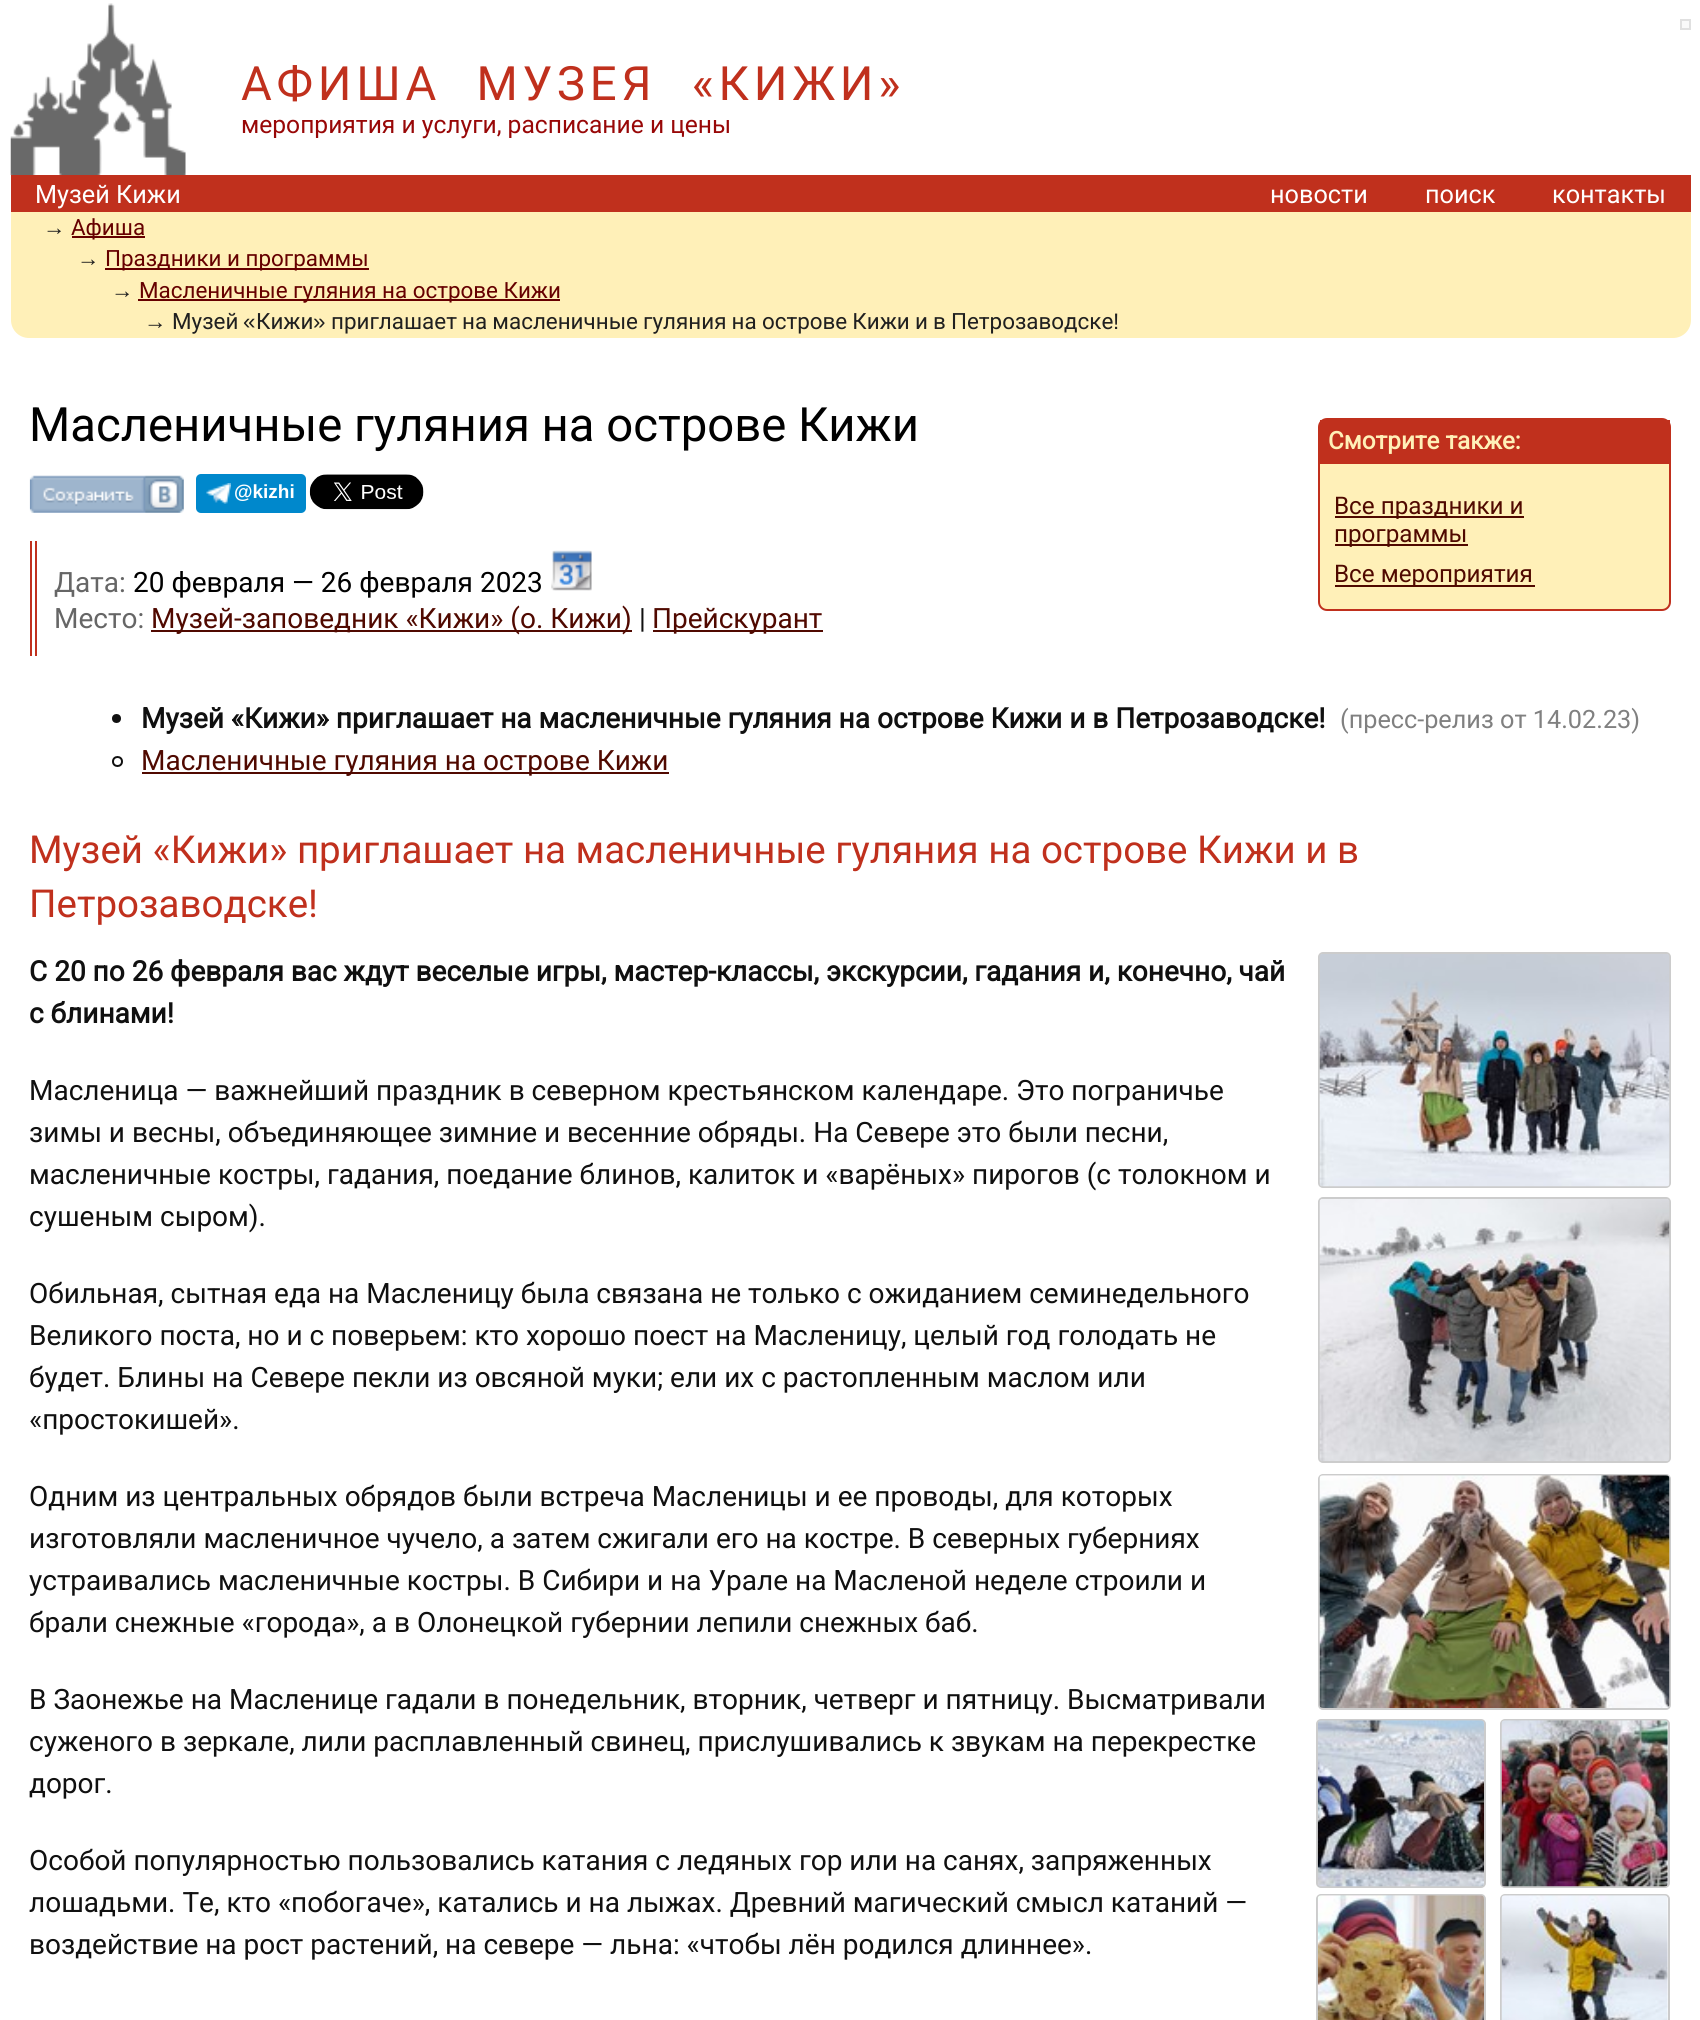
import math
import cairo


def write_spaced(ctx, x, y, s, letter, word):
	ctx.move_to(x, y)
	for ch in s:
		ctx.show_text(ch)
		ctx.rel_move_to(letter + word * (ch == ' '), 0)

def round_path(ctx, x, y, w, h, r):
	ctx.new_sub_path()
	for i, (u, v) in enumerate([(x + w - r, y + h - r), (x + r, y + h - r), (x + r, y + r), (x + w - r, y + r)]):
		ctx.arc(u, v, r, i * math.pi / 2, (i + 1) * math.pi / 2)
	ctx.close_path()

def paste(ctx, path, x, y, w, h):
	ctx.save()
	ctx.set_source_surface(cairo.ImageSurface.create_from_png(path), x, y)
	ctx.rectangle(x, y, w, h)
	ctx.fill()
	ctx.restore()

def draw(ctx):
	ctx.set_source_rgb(1, 1, 1)
	ctx.paint()
	paste(ctx, 'media/1.png', 10, 3, 176, 172)
	ctx.set_source_rgb(0.973, 0.973, 0.973)
	ctx.rectangle(1681, 20, 9, 9)
	ctx.fill_preserve()
	ctx.set_source_rgb(0.878, 0.878, 0.878)
	ctx.stroke()
	ctx.select_font_face('Roboto')
	ctx.set_font_size(47.25)
	ctx.set_source_rgb(0.753, 0.188, 0.114)
	write_spaced(ctx, 241, 100, 'АФИША МУЗЕЯ «КИЖИ»', 4.75, 19)
	ctx.set_font_size(24.6)
	ctx.set_source_rgb(0.596, 0.031, 0.031)
	ctx.move_to(241, 133)
	ctx.show_text('мероприятия и услуги, расписание и цены')
	ctx.set_source_rgb(0.753, 0.188, 0.114)
	ctx.rectangle(11, 175, 1680, 37)
	ctx.fill()
	ctx.set_font_size(25.25)
	ctx.set_source_rgb(1, 1, 1)
	for x, y, s in [
		(35, 203, 'Музей Кижи'),
		(1270, 203, 'новости'),
		(1425, 203, 'поиск'),
		(1552, 203, 'контакты'),
	]:
		ctx.move_to(x, y)
		ctx.show_text(s)
	ctx.set_source_rgb(1, 0.941, 0.722)
	ctx.new_path()
	ctx.move_to(11, 212)
	ctx.line_to(1691, 212)
	ctx.line_to(1691, 320)
	ctx.curve_to(1691, 330, 1683, 338, 1673, 338)
	ctx.line_to(29, 338)
	ctx.curve_to(19, 338, 11, 330, 11, 320)
	ctx.close_path()
	ctx.fill()
	ctx.select_font_face('Liberation Sans')
	ctx.set_font_size(22.4)
	ctx.set_source_rgb(0.125, 0.125, 0.125)
	ctx.move_to(43, 235)
	ctx.show_text('→')
	ctx.set_source_rgb(0.4, 0, 0)
	ctx.rectangle(72, 236, 73, 2)
	ctx.fill()
	ctx.select_font_face('Roboto')
	ctx.move_to(71, 235)
	ctx.show_text('Афиша')
	ctx.select_font_face('Liberation Sans')
	ctx.set_source_rgb(0.125, 0.125, 0.125)
	ctx.move_to(77, 266)
	ctx.show_text('→')
	ctx.set_source_rgb(0.4, 0, 0)
	ctx.rectangle(105, 268, 264, 2)
	ctx.fill()
	ctx.select_font_face('Roboto')
	ctx.move_to(105, 266)
	ctx.show_text('Праздники и программы')
	ctx.select_font_face('Liberation Sans')
	ctx.set_source_rgb(0.125, 0.125, 0.125)
	ctx.move_to(111, 298)
	ctx.show_text('→')
	ctx.set_source_rgb(0.4, 0, 0)
	ctx.rectangle(138, 299, 422, 2)
	ctx.fill()
	ctx.select_font_face('Roboto')
	ctx.move_to(139, 298)
	ctx.show_text('Масленичные гуляния на острове Кижи')
	ctx.select_font_face('Liberation Sans')
	ctx.set_source_rgb(0.125, 0.125, 0.125)
	ctx.move_to(144, 329)
	ctx.show_text('→')
	ctx.select_font_face('Roboto')
	ctx.move_to(172, 329)
	ctx.show_text('Музей')
	ctx.select_font_face('Liberation Sans')
	ctx.move_to(243, 329)
	ctx.show_text('«')
	ctx.select_font_face('Roboto')
	ctx.move_to(256, 329)
	ctx.show_text('Кижи')
	ctx.select_font_face('Liberation Sans')
	ctx.move_to(313, 329)
	ctx.show_text('»')
	ctx.select_font_face('Roboto')
	write_spaced(ctx, 331, 329, 'приглашает на масленичные гуляния на острове Кижи и в Петрозаводске', 0, -0.4)
	ctx.select_font_face('Liberation Sans')
	ctx.move_to(1113, 329)
	ctx.show_text('!')
	ctx.select_font_face('Roboto')
	ctx.set_font_size(47.25)
	ctx.set_source_rgb(0, 0, 0)
	ctx.move_to(29, 441)
	ctx.show_text('Масленичные гуляния на острове Кижи')
	paste(ctx, 'media/2.png', 29, 475, 155, 38)
	ctx.set_source_rgb(0, 0.533, 0.8)
	round_path(ctx, 196, 474, 110, 39, 5)
	ctx.fill()
	paste(ctx, 'media/3.png', 206, 483, 25, 21)
	ctx.select_font_face('Liberation Sans', cairo.FONT_SLANT_NORMAL, cairo.FONT_WEIGHT_BOLD)
	ctx.set_font_size(19)
	ctx.set_source_rgb(1, 1, 1)
	ctx.move_to(234, 498)
	ctx.show_text('@kizhi')
	paste(ctx, 'media/4.png', 309, 474, 115, 36)
	ctx.set_source_rgb(1, 0.941, 0.722)
	round_path(ctx, 1319, 419, 351, 191, 8)
	ctx.fill_preserve()
	ctx.set_source_rgb(0.753, 0.188, 0.114)
	ctx.stroke()
	ctx.rectangle(1320, 420, 350, 44)
	ctx.fill()
	ctx.select_font_face('Roboto', cairo.FONT_SLANT_NORMAL, cairo.FONT_WEIGHT_BOLD)
	ctx.set_font_size(24.25)
	ctx.set_source_rgb(1, 0.941, 0.722)
	ctx.move_to(1328, 449)
	ctx.show_text('Смотрите также:')
	ctx.set_source_rgb(0.314, 0.039, 0)
	ctx.rectangle(1335, 516, 189, 2)
	ctx.fill()
	ctx.select_font_face('Roboto')
	ctx.move_to(1334, 514)
	ctx.show_text('Все праздники и')
	ctx.rectangle(1335, 544, 133, 2)
	ctx.fill()
	ctx.move_to(1334, 542)
	ctx.show_text('программы')
	ctx.rectangle(1335, 585, 200, 2)
	ctx.fill()
	ctx.move_to(1334, 582)
	ctx.show_text('Все мероприятия')
	ctx.set_source_rgb(0.753, 0.188, 0.114)
	ctx.rectangle(30, 541, 2, 115)
	ctx.fill()
	ctx.rectangle(35, 541, 2, 115)
	ctx.fill()
	ctx.set_font_size(28)
	ctx.set_source_rgb(0.4, 0.4, 0.4)
	ctx.move_to(54, 592)
	ctx.show_text('Дата:')
	ctx.set_source_rgb(0, 0, 0)
	ctx.move_to(133, 592)
	ctx.show_text('20 февраля — 26 февраля 2023')
	paste(ctx, 'media/5.png', 551, 550, 41, 41)
	ctx.set_source_rgb(0.4, 0.4, 0.4)
	ctx.move_to(54, 628)
	ctx.show_text('Место:')
	ctx.set_source_rgb(0.314, 0.039, 0)
	ctx.rectangle(151, 630, 481, 2)
	ctx.fill()
	ctx.move_to(151, 628)
	ctx.show_text('Музей-заповедник «Кижи» (о. Кижи)')
	ctx.set_source_rgb(0.063, 0.063, 0.063)
	ctx.move_to(639, 628)
	ctx.show_text('|')
	ctx.set_source_rgb(0.314, 0.039, 0)
	ctx.rectangle(653, 630, 170, 2)
	ctx.fill()
	ctx.move_to(652, 628)
	ctx.show_text('Прейскурант')
	ctx.set_source_rgb(0.063, 0.063, 0.063)
	ctx.new_path()
	ctx.arc(116.5, 718.5, 4.5, 0, 2 * math.pi)
	ctx.fill()
	ctx.select_font_face('Roboto', cairo.FONT_SLANT_NORMAL, cairo.FONT_WEIGHT_BOLD)
	ctx.move_to(141, 728)
	ctx.show_text('Музей «Кижи» приглашает на масленичные гуляния на острове Кижи и в Петрозаводске!')
	ctx.select_font_face('Roboto')
	ctx.set_font_size(25.25)
	ctx.set_source_rgb(0.502, 0.502, 0.502)
	ctx.move_to(1340, 728)
	ctx.show_text('(пресс-релиз от 14.02.23)')
	ctx.new_path()
	ctx.arc(117.5, 761.5, 4.5, 0, 2 * math.pi)
	ctx.set_source_rgb(0.063, 0.063, 0.063)
	ctx.stroke()
	ctx.set_source_rgb(0.314, 0.039, 0)
	ctx.rectangle(142, 772, 527, 2)
	ctx.fill()
	ctx.set_font_size(28)
	ctx.move_to(141, 770)
	ctx.show_text('Масленичные гуляния на острове Кижи')
	ctx.set_font_size(38.5)
	ctx.set_source_rgb(0.753, 0.188, 0.114)
	ctx.move_to(29, 863)
	ctx.show_text('Музей «Кижи» приглашает на масленичные гуляния на острове Кижи и в')
	ctx.move_to(29, 917)
	ctx.show_text('Петрозаводске!')
	ctx.select_font_face('Roboto', cairo.FONT_SLANT_NORMAL, cairo.FONT_WEIGHT_BOLD)
	ctx.set_font_size(28)
	ctx.set_source_rgb(0.063, 0.063, 0.063)
	ctx.move_to(29, 981)
	ctx.show_text('С 20 по 26 февраля вас ждут веселые игры, мастер-классы, экскурсии, гадания и, конечно, чай')
	ctx.move_to(29, 1023)
	ctx.show_text('с блинами!')
	ctx.select_font_face('Roboto')
	for x, y, s in [
		(29, 1100, 'Масленица — важнейший праздник в северном крестьянском календаре. Это пограничье'),
		(29, 1142, 'зимы и весны, объединяющее зимние и весенние обряды. На Севере это были песни,'),
		(29, 1184, 'масленичные костры, гадания, поедание блинов, калиток и «варёных» пирогов (с толокном и'),
		(29, 1226, 'сушеным сыром).'),
		(29, 1303, 'Обильная, сытная еда на Масленицу была связана не только с ожиданием семинедельного'),
		(29, 1345, 'Великого поста, но и с поверьем: кто хорошо поест на Масленицу, целый год голодать не'),
		(29, 1387, 'будет. Блины на Севере пекли из овсяной муки; ели их с растопленным маслом или'),
		(29, 1429, '«простокишей».'),
		(29, 1506, 'Одним из центральных обрядов были встреча Масленицы и ее проводы, для которых'),
		(29, 1548, 'изготовляли масленичное чучело, а затем сжигали его на костре. В северных губерниях'),
		(29, 1590, 'устраивались масленичные костры. В Сибири и на Урале на Масленой неделе строили и'),
		(29, 1632, 'брали снежные «города», а в Олонецкой губернии лепили снежных баб.'),
		(29, 1709, 'В Заонежье на Масленице гадали в понедельник, вторник, четверг и пятницу. Высматривали'),
		(29, 1751, 'суженого в зеркале, лили расплавленный свинец, прислушивались к звукам на перекрестке'),
		(29, 1793, 'дорог.'),
		(29, 1870, 'Особой популярностью пользовались катания с ледяных гор или на санях, запряженных'),
		(29, 1912, 'лошадьми. Те, кто «побогаче», катались и на лыжах. Древний магический смысл катаний —'),
		(29, 1954, 'воздействие на рост растений, на севере — льна: «чтобы лён родился длиннее».'),
	]:
		ctx.move_to(x, y)
		ctx.show_text(s)
	round_path(ctx, 1319, 953, 351, 234, 4)
	ctx.set_source_rgb(0.8, 0.8, 0.8)
	ctx.stroke()
	paste(ctx, 'media/6.png', 1319, 954, 351, 233)
	round_path(ctx, 1319, 1198, 351, 264, 4)
	ctx.stroke()
	paste(ctx, 'media/7.png', 1319, 1199, 351, 262)
	round_path(ctx, 1319, 1475, 351, 234, 4)
	ctx.stroke()
	paste(ctx, 'media/8.png', 1319, 1475, 351, 233)
	round_path(ctx, 1317, 1720, 168, 167, 4)
	ctx.stroke()
	paste(ctx, 'media/9.png', 1317, 1720, 167, 167)
	round_path(ctx, 1501, 1720, 168, 167, 4)
	ctx.stroke()
	paste(ctx, 'media/10.png', 1501, 1720, 167, 167)
	round_path(ctx, 1317, 1895, 168, 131, 4)
	ctx.stroke()
	paste(ctx, 'media/11.png', 1317, 1895, 167, 125)
	round_path(ctx, 1501, 1895, 168, 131, 4)
	ctx.stroke()
	paste(ctx, 'media/12.png', 1501, 1895, 167, 125)


surface = cairo.ImageSurface(cairo.FORMAT_RGB24, 1700, 2020)
ctx = cairo.Context(surface)
options = cairo.FontOptions()
options.set_hint_metrics(cairo.HINT_METRICS_OFF)
options.set_hint_style(cairo.HINT_STYLE_NONE)
ctx.set_font_options(options)
ctx.set_miter_limit(4)
draw(ctx)
surface.write_to_png('image.png')
